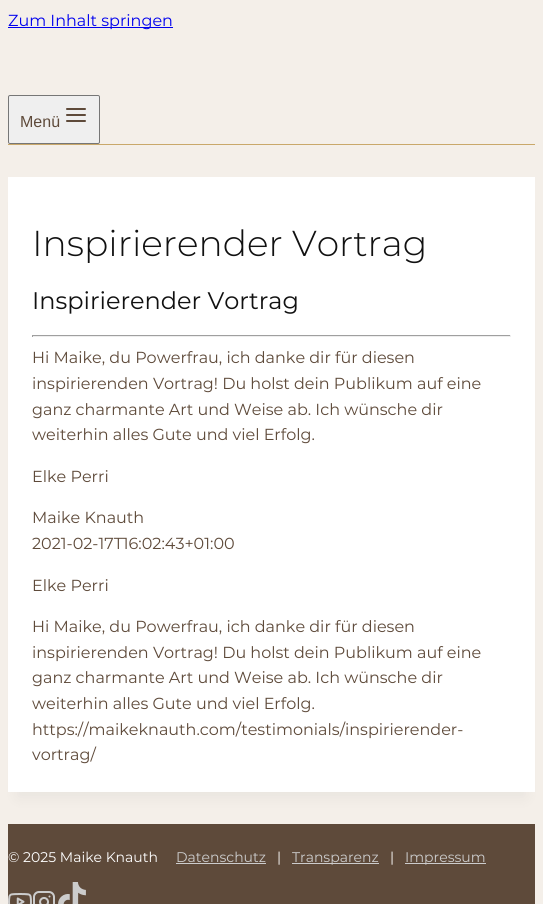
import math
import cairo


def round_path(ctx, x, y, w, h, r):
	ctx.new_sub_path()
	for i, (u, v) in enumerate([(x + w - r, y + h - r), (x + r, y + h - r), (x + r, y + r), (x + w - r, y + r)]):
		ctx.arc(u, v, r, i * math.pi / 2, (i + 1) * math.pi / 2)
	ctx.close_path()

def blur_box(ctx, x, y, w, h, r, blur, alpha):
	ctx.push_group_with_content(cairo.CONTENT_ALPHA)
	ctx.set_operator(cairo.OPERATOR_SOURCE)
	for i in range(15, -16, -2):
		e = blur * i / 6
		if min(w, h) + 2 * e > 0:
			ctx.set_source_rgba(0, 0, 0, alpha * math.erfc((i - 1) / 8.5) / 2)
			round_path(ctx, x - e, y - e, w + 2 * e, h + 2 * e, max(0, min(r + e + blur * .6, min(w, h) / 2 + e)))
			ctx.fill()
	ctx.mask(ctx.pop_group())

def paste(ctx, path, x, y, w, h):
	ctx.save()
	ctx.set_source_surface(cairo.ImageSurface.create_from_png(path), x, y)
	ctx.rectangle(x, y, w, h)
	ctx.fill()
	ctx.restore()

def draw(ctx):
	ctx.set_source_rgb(0.957, 0.937, 0.914)
	ctx.paint()
	ctx.set_source_rgb(0, 0, 0.933)
	ctx.rectangle(8, 27, 165, 1)
	ctx.fill()
	ctx.select_font_face('Montserrat')
	ctx.set_font_size(16)
	ctx.move_to(8, 26)
	ctx.show_text('Zum Inhalt springen')
	ctx.set_source_rgb(0.788, 0.659, 0.416)
	ctx.rectangle(8, 144, 527, 1)
	ctx.fill()
	ctx.set_source_rgb(0.937, 0.937, 0.937)
	round_path(ctx, 8.5, 95.5, 91, 48, 1.5)
	ctx.fill_preserve()
	ctx.set_source_rgb(0.463, 0.463, 0.463)
	ctx.set_line_width(1)
	ctx.stroke()
	ctx.select_font_face('Liberation Sans')
	ctx.set_source_rgb(0.369, 0.29, 0.227)
	ctx.move_to(20, 127)
	ctx.show_text('Menü')
	paste(ctx, 'media/1.png', 66, 108, 20, 14)
	ctx.set_source_rgb(0, 0, 0)
	blur_box(ctx, 18, 202, 507, 595, 0, 7.5, 0.05)
	ctx.set_source_rgb(1, 1, 1)
	ctx.rectangle(8, 177, 527, 615)
	ctx.fill()
	ctx.select_font_face('Montserrat Light')
	ctx.set_font_size(36)
	ctx.set_source_rgb(0.067, 0.067, 0.067)
	ctx.move_to(32, 256)
	ctx.show_text('Inspirierender Vortrag')
	ctx.select_font_face('Montserrat')
	ctx.set_font_size(24)
	ctx.move_to(32, 309)
	ctx.show_text('Inspirierender Vortrag')
	ctx.set_source_rgb(0.624, 0.624, 0.624)
	ctx.rectangle(32, 335, 479, 1)
	ctx.fill()
	ctx.set_source_rgb(0.933, 0.933, 0.933)
	ctx.rectangle(510, 335, 1, 2)
	ctx.rectangle(32, 336, 479, 1)
	ctx.fill()
	ctx.set_source_rgb(0.624, 0.624, 0.624)
	ctx.rectangle(32, 335, 1, 2)
	ctx.fill()
	ctx.set_font_size(16)
	ctx.set_source_rgb(0.369, 0.29, 0.227)
	for x, y, s in [
		(32, 363, 'Hi Maike, du Powerfrau, ich danke dir für diesen'),
		(32, 389, 'inspirierenden Vortrag! Du holst dein Publikum auf eine'),
		(32, 415, 'ganz charmante Art und Weise ab. Ich wünsche dir'),
		(32, 440, 'weiterhin alles Gute und viel Erfolg.'),
		(32, 482, 'Elke Perri'),
		(32, 523, 'Maike Knauth'),
		(32, 549, '2021-02-17T16:02:43+01:00'),
		(32, 591, 'Elke Perri'),
		(32, 632, 'Hi Maike, du Powerfrau, ich danke dir für diesen'),
		(32, 658, 'inspirierenden Vortrag! Du holst dein Publikum auf eine'),
		(32, 683, 'ganz charmante Art und Weise ab. Ich wünsche dir'),
		(32, 709, 'weiterhin alles Gute und viel Erfolg.'),
		(32, 735, 'https://maikeknauth.com/testimonials/inspirierender-'),
		(32, 760, 'vortrag/'),
	]:
		ctx.move_to(x, y)
		ctx.show_text(s)
	ctx.rectangle(8, 824, 527, 80)
	ctx.fill()
	ctx.set_font_size(14)
	ctx.set_source_rgb(1, 1, 1)
	ctx.move_to(8, 862)
	ctx.show_text('© 2025 Maike Knauth')
	ctx.set_source_rgb(0.8, 0.8, 0.8)
	ctx.move_to(176, 862)
	ctx.show_text('Datenschutz')
	ctx.rectangle(176, 863, 90, 1)
	ctx.fill()
	ctx.set_source_rgb(1, 1, 1)
	ctx.move_to(277, 862)
	ctx.show_text('|')
	ctx.set_source_rgb(0.8, 0.8, 0.8)
	ctx.rectangle(292, 863, 87, 1)
	ctx.fill()
	ctx.move_to(292, 862)
	ctx.show_text('Transparenz')
	ctx.set_source_rgb(1, 1, 1)
	ctx.move_to(390, 862)
	ctx.show_text('|')
	ctx.set_source_rgb(0.8, 0.8, 0.8)
	ctx.rectangle(405, 863, 81, 1)
	ctx.fill()
	ctx.move_to(405, 862)
	ctx.show_text('Impressum')
	paste(ctx, 'media/2.png', 8, 893, 24, 11)
	paste(ctx, 'media/3.png', 33, 891, 22, 13)
	paste(ctx, 'media/4.png', 58, 882, 28, 22)


surface = cairo.ImageSurface(cairo.FORMAT_RGB24, 543, 904)
ctx = cairo.Context(surface)
options = cairo.FontOptions()
options.set_hint_metrics(cairo.HINT_METRICS_OFF)
options.set_hint_style(cairo.HINT_STYLE_NONE)
ctx.set_font_options(options)
ctx.set_miter_limit(4)
draw(ctx)
surface.write_to_png('image.png')
